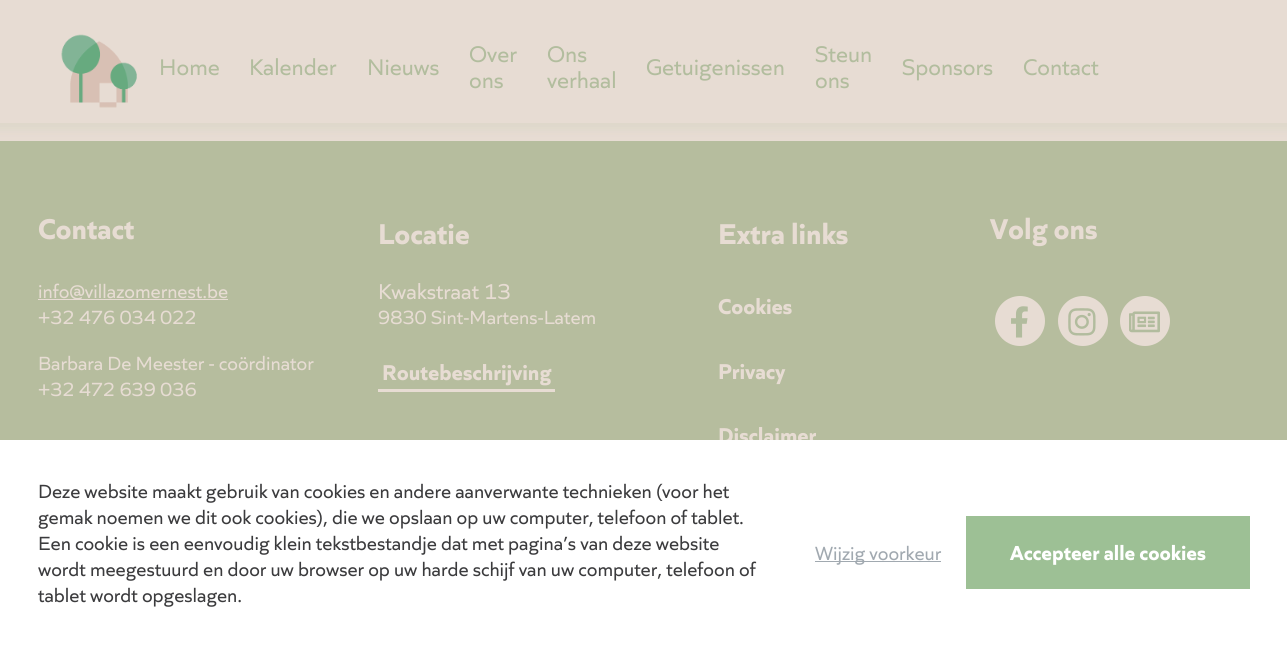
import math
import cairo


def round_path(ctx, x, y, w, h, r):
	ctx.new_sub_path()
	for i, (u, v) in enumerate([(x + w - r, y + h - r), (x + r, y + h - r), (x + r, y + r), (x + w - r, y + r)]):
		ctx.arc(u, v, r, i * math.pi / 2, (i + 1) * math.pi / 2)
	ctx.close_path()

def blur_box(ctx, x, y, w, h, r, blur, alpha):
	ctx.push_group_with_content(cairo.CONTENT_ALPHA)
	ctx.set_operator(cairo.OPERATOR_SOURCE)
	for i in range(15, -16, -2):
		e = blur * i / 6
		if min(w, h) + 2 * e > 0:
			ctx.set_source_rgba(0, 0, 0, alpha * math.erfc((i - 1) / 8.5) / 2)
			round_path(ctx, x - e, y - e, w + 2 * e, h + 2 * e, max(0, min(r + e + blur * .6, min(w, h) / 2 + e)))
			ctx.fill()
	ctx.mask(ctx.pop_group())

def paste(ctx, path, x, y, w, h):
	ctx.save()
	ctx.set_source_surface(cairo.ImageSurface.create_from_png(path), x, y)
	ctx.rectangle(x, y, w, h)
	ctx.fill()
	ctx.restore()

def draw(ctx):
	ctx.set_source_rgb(0.906, 0.863, 0.827)
	ctx.paint()
	ctx.set_source_rgb(0.714, 0.741, 0.62)
	ctx.rectangle(0, 141, 1287, 299)
	ctx.fill()
	ctx.set_source_rgb(0.592, 0.722, 0.541)
	blur_box(ctx, -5, -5, 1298, 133, 0, 6, 0.15)
	ctx.set_source_rgb(0.906, 0.863, 0.827)
	ctx.rectangle(0, 0, 1287, 123)
	ctx.fill()
	paste(ctx, 'media/1.png', 61, 34, 76, 74)
	ctx.select_font_face('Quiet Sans')
	ctx.set_font_size(23.75)
	ctx.set_source_rgb(0.698, 0.741, 0.62)
	for x, y, s in [
		(159, 75, 'Home'),
		(249, 75, 'Kalender'),
		(367, 75, 'Nieuws'),
		(469, 62, 'Over'),
		(469, 88, 'ons'),
		(547, 62, 'Ons'),
		(547, 88, 'verhaal'),
		(646, 75, 'Getuigenissen'),
		(815, 62, 'Steun'),
		(815, 88, 'ons'),
		(902, 75, 'Sponsors'),
		(1023, 75, 'Contact'),
	]:
		ctx.move_to(x, y)
		ctx.show_text(s)
	ctx.select_font_face('Quiet Sans', cairo.FONT_SLANT_NORMAL, cairo.FONT_WEIGHT_BOLD)
	ctx.set_font_size(30)
	ctx.set_source_rgb(0.906, 0.863, 0.827)
	for x, y, s in [
		(38, 239, 'Contact'),
		(378, 244, 'Locatie'),
		(718, 244, 'Extra links'),
		(990, 239, 'Volg ons'),
	]:
		ctx.move_to(x, y)
		ctx.show_text(s)
	ctx.rectangle(38, 299, 190, 1)
	ctx.fill()
	ctx.select_font_face('Quiet Sans')
	ctx.set_font_size(20)
	for x, y, s in [
		(38, 298, 'info@villazomernest.be'),
		(38, 324, '+32 476 034 022'),
		(38, 370, 'Barbara De Meester - coördinator'),
		(38, 396, '+32 472 639 036'),
	]:
		ctx.move_to(x, y)
		ctx.show_text(s)
	ctx.set_font_size(22.5)
	ctx.move_to(378, 299)
	ctx.show_text('Kwakstraat 13')
	ctx.set_font_size(20)
	ctx.move_to(378, 324)
	ctx.show_text('9830 Sint-Martens-Latem')
	ctx.rectangle(378, 389, 177, 3)
	ctx.fill()
	ctx.select_font_face('Quiet Sans', cairo.FONT_SLANT_NORMAL, cairo.FONT_WEIGHT_BOLD)
	ctx.set_font_size(22.5)
	for x, y, s in [
		(382, 380, 'Routebeschrijving'),
		(718, 314, 'Cookies'),
		(718, 379, 'Privacy'),
		(718, 443, 'Disclaimer'),
	]:
		ctx.move_to(x, y)
		ctx.show_text(s)
	ctx.new_path()
	ctx.arc(1020, 321, 25, 0, 2 * math.pi)
	ctx.fill()
	paste(ctx, 'media/2.png', 1011, 306, 17, 32)
	ctx.arc(1083, 321, 25, 0, 2 * math.pi)
	ctx.fill()
	paste(ctx, 'media/3.png', 1068, 308, 28, 28)
	ctx.arc(1145, 321, 25, 0, 2 * math.pi)
	ctx.fill()
	paste(ctx, 'media/4.png', 1129, 311, 31, 22)
	ctx.set_source_rgb(1, 1, 1)
	ctx.rectangle(0, 440, 1287, 224)
	ctx.fill()
	ctx.select_font_face('Quiet Sans')
	ctx.set_font_size(20)
	ctx.set_source_rgb(0.231, 0.231, 0.239)
	for x, y, s in [
		(38, 498, 'Deze website maakt gebruik van cookies en andere aanverwante technieken (voor het'),
		(38, 524, 'gemak noemen we dit ook cookies), die we opslaan op uw computer, telefoon of tablet.'),
		(38, 550, 'Een cookie is een eenvoudig klein tekstbestandje dat met pagina’s van deze website'),
		(38, 576, 'wordt meegestuurd en door uw browser op uw harde schijf van uw computer, telefoon of'),
		(38, 602, 'tablet wordt opgeslagen.'),
	]:
		ctx.move_to(x, y)
		ctx.show_text(s)
	ctx.set_source_rgb(0.631, 0.663, 0.69)
	ctx.rectangle(815, 561, 126, 1)
	ctx.fill()
	ctx.move_to(815, 560)
	ctx.show_text('Wijzig voorkeur')
	ctx.set_source_rgb(0.616, 0.753, 0.584)
	ctx.rectangle(966, 516, 284, 73)
	ctx.fill()
	ctx.select_font_face('Quiet Sans', cairo.FONT_SLANT_NORMAL, cairo.FONT_WEIGHT_BOLD)
	ctx.set_font_size(21.25)
	ctx.set_source_rgb(1, 1, 1)
	ctx.move_to(1010, 560)
	ctx.show_text('Accepteer alle cookies')


surface = cairo.ImageSurface(cairo.FORMAT_RGB24, 1287, 664)
ctx = cairo.Context(surface)
options = cairo.FontOptions()
options.set_hint_metrics(cairo.HINT_METRICS_OFF)
options.set_hint_style(cairo.HINT_STYLE_NONE)
ctx.set_font_options(options)
ctx.set_miter_limit(4)
draw(ctx)
surface.write_to_png('image.png')
